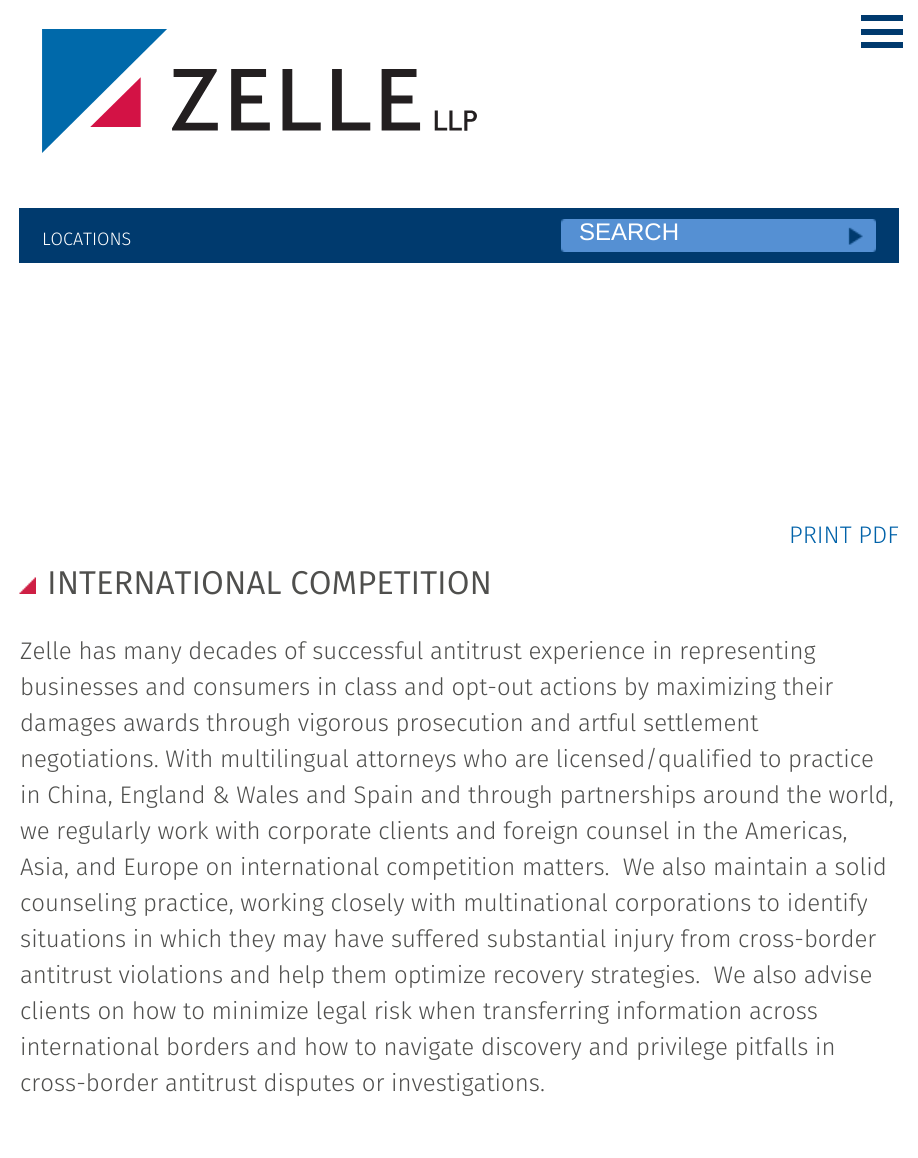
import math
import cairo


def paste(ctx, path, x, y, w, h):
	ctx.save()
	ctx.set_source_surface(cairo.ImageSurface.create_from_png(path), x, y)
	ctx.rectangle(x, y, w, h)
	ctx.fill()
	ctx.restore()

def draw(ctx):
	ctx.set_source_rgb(1, 1, 1)
	ctx.paint()
	ctx.set_source_rgb(0, 0.227, 0.431)
	ctx.rectangle(861, 15, 42, 6)
	ctx.rectangle(861, 42, 42, 6)
	ctx.rectangle(861, 29, 42, 6)
	ctx.rectangle(19, 208, 880, 55)
	ctx.fill()
	paste(ctx, 'media/1.png', 42, 29, 435, 124)
	ctx.select_font_face('Fira Sans Light')
	ctx.set_font_size(18)
	ctx.set_source_rgb(1, 1, 1)
	ctx.move_to(42, 245)
	ctx.show_text('LOCATIONS')
	paste(ctx, 'media/2.png', 561, 219, 315, 33)
	ctx.select_font_face('Liberation Sans')
	ctx.set_font_size(24)
	ctx.move_to(579, 240)
	ctx.show_text('SEARCH')
	paste(ctx, 'media/3.png', 848, 227, 15, 18)
	ctx.select_font_face('Fira Sans Light')
	ctx.set_source_rgb(0.004, 0.384, 0.663)
	ctx.move_to(789, 543)
	ctx.show_text('PRINT PDF')
	paste(ctx, 'media/4.png', 19, 577, 17, 17)
	ctx.select_font_face('Fira Sans')
	ctx.set_font_size(33)
	ctx.set_source_rgb(0.31, 0.31, 0.302)
	ctx.move_to(47, 594)
	ctx.show_text('INTERNATIONAL COMPETITION')
	ctx.select_font_face('Fira Sans Light')
	ctx.set_font_size(24)
	for x, y, s in [
		(20, 659, 'Zelle has many decades of successful antitrust experience in representing'),
		(20, 695, 'businesses and consumers in class and opt-out actions by maximizing their'),
		(20, 731, 'damages awards through vigorous prosecution and artful settlement'),
		(20, 767, 'negotiations. With multilingual attorneys who are licensed/qualified to practice'),
		(20, 803, 'in China, England & Wales and Spain and through partnerships around the world,'),
		(20, 839, 'we regularly work with corporate clients and foreign counsel in the Americas,'),
		(20, 875, 'Asia, and Europe on international competition matters.  We also maintain a solid'),
		(20, 911, 'counseling practice, working closely with multinational corporations to identify'),
		(20, 947, 'situations in which they may have suffered substantial injury from cross-border'),
		(20, 983, 'antitrust violations and help them optimize recovery strategies.  We also advise'),
		(20, 1019, 'clients on how to minimize legal risk when transferring information across'),
		(20, 1055, 'international borders and how to navigate discovery and privilege pitfalls in'),
		(20, 1091, 'cross-border antitrust disputes or investigations.'),
	]:
		ctx.move_to(x, y)
		ctx.show_text(s)


surface = cairo.ImageSurface(cairo.FORMAT_RGB24, 918, 1158)
ctx = cairo.Context(surface)
options = cairo.FontOptions()
options.set_hint_metrics(cairo.HINT_METRICS_OFF)
options.set_hint_style(cairo.HINT_STYLE_NONE)
ctx.set_font_options(options)
ctx.set_miter_limit(4)
draw(ctx)
surface.write_to_png('image.png')
